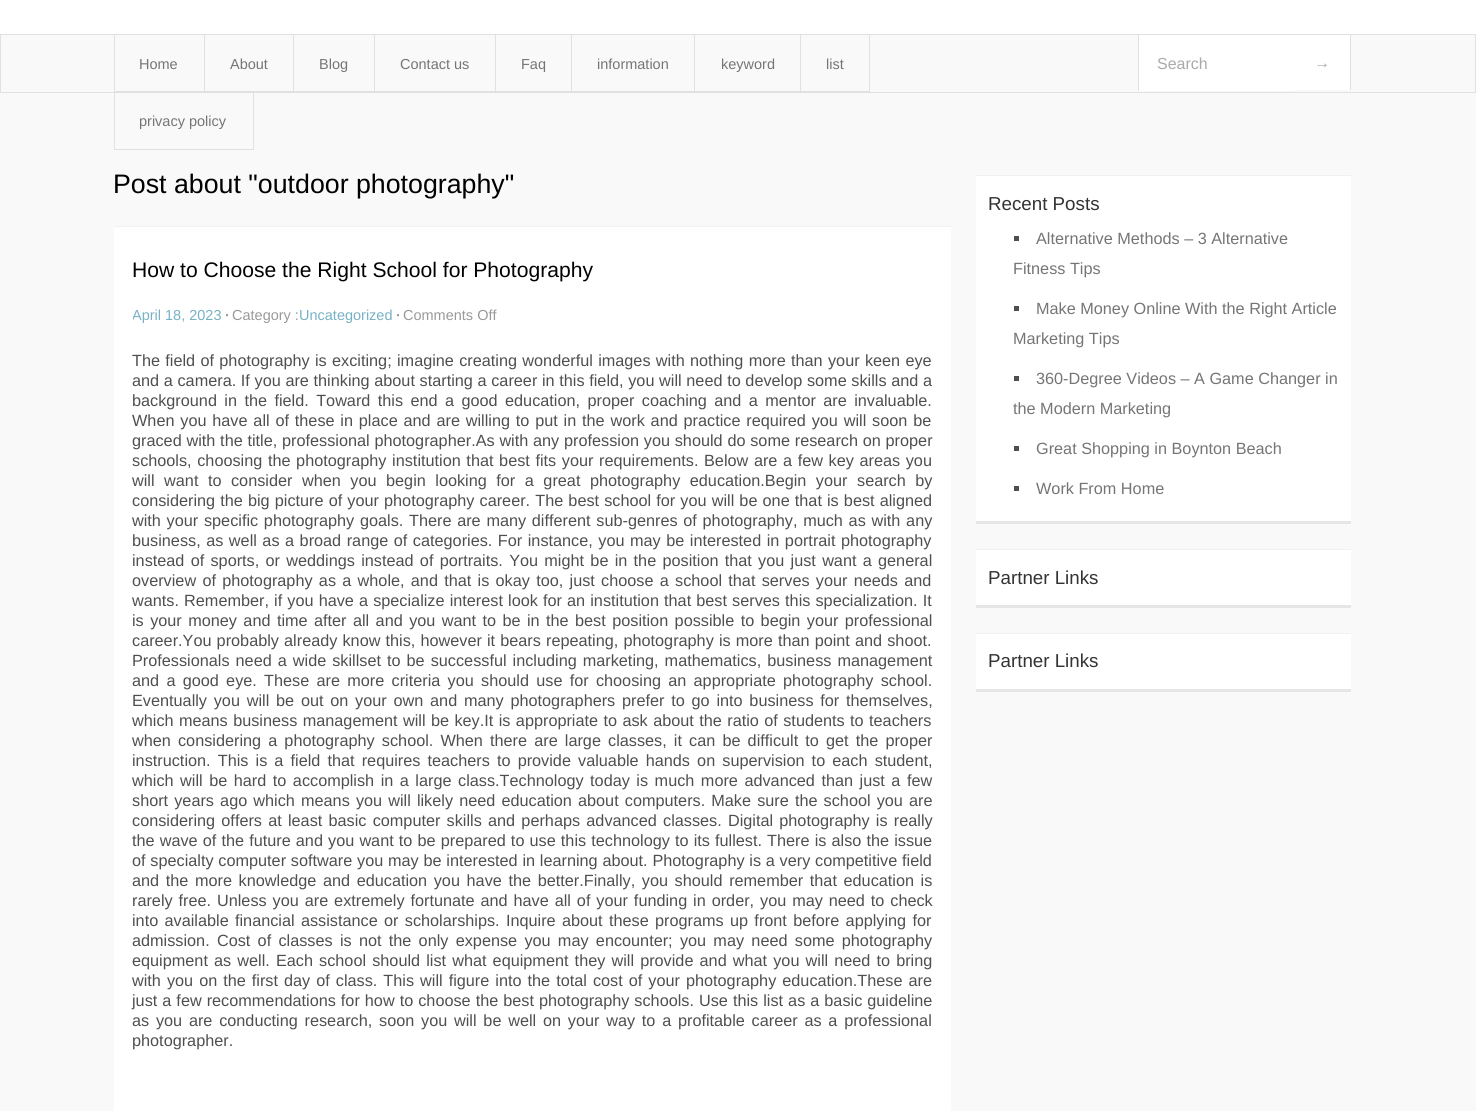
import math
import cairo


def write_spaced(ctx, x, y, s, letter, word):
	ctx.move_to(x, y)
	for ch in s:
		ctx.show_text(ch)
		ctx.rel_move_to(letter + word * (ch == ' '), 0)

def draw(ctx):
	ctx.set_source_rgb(0.973, 0.973, 0.973)
	ctx.paint()
	ctx.set_source_rgb(1, 1, 1)
	ctx.rectangle(0, 0, 1476, 34)
	ctx.fill()
	ctx.rectangle(0.5, 34.5, 1475, 58)
	ctx.set_source_rgb(0.882, 0.882, 0.882)
	ctx.set_line_width(1)
	ctx.stroke()
	ctx.rectangle(114, 35, 1, 115)
	ctx.rectangle(204, 35, 1, 58)
	ctx.rectangle(115, 91, 90, 1)
	ctx.fill()
	ctx.select_font_face('Liberation Sans')
	ctx.set_font_size(14.5)
	ctx.set_source_rgb(0.463, 0.459, 0.459)
	ctx.move_to(139, 69)
	ctx.show_text('Home')
	ctx.set_source_rgb(0.882, 0.882, 0.882)
	ctx.rectangle(293, 35, 1, 58)
	ctx.fill()
	ctx.rectangle(205, 91, 89, 1)
	ctx.fill()
	ctx.set_source_rgb(0.463, 0.459, 0.459)
	ctx.move_to(230, 69)
	ctx.show_text('About')
	ctx.set_source_rgb(0.882, 0.882, 0.882)
	ctx.rectangle(374, 35, 1, 58)
	ctx.fill()
	ctx.rectangle(294, 91, 81, 1)
	ctx.fill()
	ctx.set_source_rgb(0.463, 0.459, 0.459)
	ctx.move_to(319, 69)
	ctx.show_text('Blog')
	ctx.set_source_rgb(0.882, 0.882, 0.882)
	ctx.rectangle(495, 35, 1, 58)
	ctx.fill()
	ctx.rectangle(375, 91, 121, 1)
	ctx.fill()
	ctx.set_source_rgb(0.463, 0.459, 0.459)
	ctx.move_to(400, 69)
	ctx.show_text('Contact us')
	ctx.set_source_rgb(0.882, 0.882, 0.882)
	ctx.rectangle(571, 35, 1, 58)
	ctx.fill()
	ctx.rectangle(496, 91, 77, 1)
	ctx.fill()
	ctx.set_source_rgb(0.463, 0.459, 0.459)
	ctx.move_to(521, 69)
	ctx.show_text('Faq')
	ctx.set_source_rgb(0.882, 0.882, 0.882)
	ctx.rectangle(694, 35, 1, 58)
	ctx.fill()
	ctx.rectangle(573, 91, 122, 1)
	ctx.fill()
	ctx.set_source_rgb(0.463, 0.459, 0.459)
	ctx.move_to(597, 69)
	ctx.show_text('information')
	ctx.set_source_rgb(0.882, 0.882, 0.882)
	ctx.rectangle(800, 35, 1, 58)
	ctx.fill()
	ctx.rectangle(695, 91, 106, 1)
	ctx.fill()
	ctx.set_source_rgb(0.463, 0.459, 0.459)
	ctx.move_to(721, 69)
	ctx.show_text('keyword')
	ctx.set_source_rgb(0.882, 0.882, 0.882)
	ctx.rectangle(869, 35, 1, 58)
	ctx.fill()
	ctx.rectangle(801, 91, 69, 1)
	ctx.fill()
	ctx.set_source_rgb(0.463, 0.459, 0.459)
	ctx.move_to(826, 69)
	ctx.show_text('list')
	ctx.set_source_rgb(0.882, 0.882, 0.882)
	ctx.rectangle(253, 93, 1, 57)
	ctx.fill()
	ctx.rectangle(115, 149, 139, 1)
	ctx.fill()
	ctx.set_source_rgb(0.463, 0.459, 0.459)
	ctx.move_to(139, 126)
	ctx.show_text('privacy policy')
	ctx.set_source_rgb(1, 1, 1)
	ctx.rectangle(1139, 35, 156, 56)
	ctx.fill()
	ctx.set_source_rgb(0.882, 0.882, 0.882)
	ctx.rectangle(1138, 35, 1, 56)
	ctx.fill()
	ctx.set_font_size(16)
	ctx.set_source_rgb(0.667, 0.667, 0.667)
	ctx.move_to(1157, 69)
	ctx.show_text('Search')
	ctx.set_source_rgb(1, 1, 1)
	ctx.rectangle(1295, 35, 55, 55)
	ctx.fill()
	ctx.set_source_rgb(0.882, 0.882, 0.882)
	ctx.rectangle(1350, 35, 1, 55)
	ctx.fill()
	ctx.set_source_rgb(0.667, 0.667, 0.667)
	ctx.move_to(1314, 68)
	ctx.show_text('→')
	ctx.set_font_size(26.75)
	ctx.set_source_rgb(0, 0, 0)
	ctx.move_to(113, 193)
	ctx.show_text('Post about "outdoor photography"')
	ctx.set_source_rgb(1, 1, 1)
	ctx.rectangle(114, 227, 837, 884)
	ctx.fill()
	ctx.set_source_rgb(0.945, 0.945, 0.945)
	ctx.rectangle(114, 226, 837, 1)
	ctx.fill()
	ctx.set_font_size(21.1)
	ctx.set_source_rgb(0, 0, 0)
	ctx.move_to(132, 277)
	ctx.show_text('How to Choose the Right School for Photography')
	ctx.save()
	ctx.rectangle(133, 296, 800, 39)
	ctx.clip()
	ctx.set_font_size(14.5)
	ctx.set_source_rgb(0.463, 0.698, 0.769)
	ctx.move_to(132, 320)
	ctx.show_text('April 18, 2023')
	ctx.restore()
	ctx.select_font_face('Liberation Sans', cairo.FONT_SLANT_NORMAL, cairo.FONT_WEIGHT_BOLD)
	ctx.set_font_size(14.5)
	ctx.set_source_rgb(0.6, 0.6, 0.6)
	ctx.move_to(225, 320)
	ctx.show_text('·')
	ctx.select_font_face('Liberation Sans')
	ctx.move_to(232, 320)
	ctx.show_text('Category :')
	ctx.set_source_rgb(0.463, 0.698, 0.769)
	ctx.move_to(299, 320)
	ctx.show_text('Uncategorized')
	ctx.select_font_face('Liberation Sans', cairo.FONT_SLANT_NORMAL, cairo.FONT_WEIGHT_BOLD)
	ctx.set_source_rgb(0.6, 0.6, 0.6)
	ctx.move_to(396, 320)
	ctx.show_text('·')
	ctx.select_font_face('Liberation Sans')
	ctx.move_to(403, 320)
	ctx.show_text('Comments Off')
	ctx.set_font_size(16.25)
	ctx.set_source_rgb(0.31, 0.31, 0.31)
	write_spaced(ctx, 132, 366, 'The field of photography is exciting; imagine creating wonderful images with nothing more than your keen eye', 0, 0.8)
	write_spaced(ctx, 132, 386, 'and a camera. If you are thinking about starting a career in this field, you will need to develop some skills and a', 0, 0.15)
	write_spaced(ctx, 132, 406, 'background in the field. Toward this end a good education, proper coaching and a mentor are invaluable.', 0, 2.9)
	write_spaced(ctx, 132, 426, 'When you have all of these in place and are willing to put in the work and practice required you will soon be', 0, 1.3)
	write_spaced(ctx, 132, 446, 'graced with the title, professional photographer.As with any profession you should do some research on proper', 0, 0.25)
	write_spaced(ctx, 132, 466, 'schools, choosing the photography institution that best fits your requirements. Below are a few key areas you', 0, 1.1)
	write_spaced(ctx, 132, 486, 'will want to consider when you begin looking for a great photography education.Begin your search by', 0, 5)
	write_spaced(ctx, 132, 506, 'considering the big picture of your photography career. The best school for you will be one that is best aligned', 0, 0.6)
	write_spaced(ctx, 132, 526, 'with your specific photography goals. There are many different sub-genres of photography, much as with any', 0, 1.2)
	write_spaced(ctx, 132, 546, 'business, as well as a broad range of categories. For instance, you may be interested in portrait photography', 0, 1)
	write_spaced(ctx, 132, 566, 'instead of sports, or weddings instead of portraits. You might be in the position that you just want a general', 0, 1.75)
	write_spaced(ctx, 132, 586, 'overview of photography as a whole, and that is okay too, just choose a school that serves your needs and', 0, 1.75)
	write_spaced(ctx, 132, 606, 'wants. Remember, if you have a specialize interest look for an institution that best serves this specialization. It', 0, 0.6)
	write_spaced(ctx, 132, 626, 'is your money and time after all and you want to be in the best position possible to begin your professional', 0, 1.9)
	write_spaced(ctx, 132, 646, 'career.You probably already know this, however it bears repeating, photography is more than point and shoot.', 0, 0.6)
	write_spaced(ctx, 132, 666, 'Professionals need a wide skillset to be successful including marketing, mathematics, business management', 0, 1.5)
	write_spaced(ctx, 132, 686, 'and a good eye. These are more criteria you should use for choosing an appropriate photography school.', 0, 2.75)
	write_spaced(ctx, 132, 706, 'Eventually you will be out on your own and many photographers prefer to go into business for themselves,', 0, 2.25)
	write_spaced(ctx, 132, 726, 'which means business management will be key.It is appropriate to ask about the ratio of students to teachers', 0, 0.9)
	write_spaced(ctx, 132, 746, 'when considering a photography school. When there are large classes, it can be difficult to get the proper', 0, 2.6)
	write_spaced(ctx, 132, 766, 'instruction. This is a field that requires teachers to provide valuable hands on supervision to each student,', 0, 2.6)
	write_spaced(ctx, 132, 786, 'which will be hard to accomplish in a large class.Technology today is much more advanced than just a few', 0, 2)
	write_spaced(ctx, 132, 806, 'short years ago which means you will likely need education about computers. Make sure the school you are', 0, 1.6)
	write_spaced(ctx, 132, 826, 'considering offers at least basic computer skills and perhaps advanced classes. Digital photography is really', 0, 1.7)
	write_spaced(ctx, 132, 846, 'the wave of the future and you want to be prepared to use this technology to its fullest. There is also the issue', 0, 0.6)
	write_spaced(ctx, 132, 866, 'of specialty computer software you may be interested in learning about. Photography is a very competitive field', 0, 0.25)
	write_spaced(ctx, 132, 886, 'and the more knowledge and education you have the better.Finally, you should remember that education is', 0, 2.1)
	write_spaced(ctx, 132, 906, 'rarely free. Unless you are extremely fortunate and have all of your funding in order, you may need to check', 0, 1.4)
	write_spaced(ctx, 132, 926, 'into available financial assistance or scholarships. Inquire about these programs up front before applying for', 0, 1.8)
	write_spaced(ctx, 132, 946, 'admission. Cost of classes is not the only expense you may encounter; you may need some photography', 0, 2.75)
	write_spaced(ctx, 132, 966, 'equipment as well. Each school should list what equipment they will provide and what you will need to bring', 0, 1.6)
	write_spaced(ctx, 132, 986, 'with you on the first day of class. This will figure into the total cost of your photography education.These are', 0, 1.5)
	write_spaced(ctx, 132, 1006, 'just a few recommendations for how to choose the best photography schools. Use this list as a basic guideline', 0, 0.5)
	write_spaced(ctx, 132, 1026, 'as you are conducting research, soon you will be well on your way to a profitable career as a professional', 0, 2.25)
	ctx.move_to(132, 1046)
	ctx.show_text('photographer.')
	ctx.set_source_rgb(1, 1, 1)
	ctx.rectangle(976, 176, 375, 345)
	ctx.fill()
	ctx.set_source_rgb(0.945, 0.945, 0.945)
	ctx.rectangle(976, 175, 375, 1)
	ctx.fill()
	ctx.set_source_rgb(0.902, 0.902, 0.902)
	ctx.rectangle(976, 521, 375, 3)
	ctx.fill()
	ctx.set_font_size(18.75)
	ctx.set_source_rgb(0.2, 0.2, 0.2)
	ctx.move_to(988, 210)
	ctx.show_text('Recent Posts')
	ctx.set_source_rgb(0.306, 0.306, 0.306)
	ctx.rectangle(1014, 236, 5, 5)
	ctx.fill()
	ctx.set_font_size(16.25)
	ctx.set_source_rgb(0.463, 0.459, 0.459)
	ctx.move_to(1036, 244)
	ctx.show_text('Alternative Methods – 3 Alternative')
	ctx.move_to(1013, 274)
	ctx.show_text('Fitness Tips')
	ctx.set_source_rgb(0.306, 0.306, 0.306)
	ctx.rectangle(1014, 306, 5, 5)
	ctx.fill()
	ctx.set_source_rgb(0.463, 0.459, 0.459)
	ctx.move_to(1036, 314)
	ctx.show_text('Make Money Online With the Right Article')
	ctx.move_to(1013, 344)
	ctx.show_text('Marketing Tips')
	ctx.set_source_rgb(0.306, 0.306, 0.306)
	ctx.rectangle(1014, 376, 5, 5)
	ctx.fill()
	ctx.set_source_rgb(0.463, 0.459, 0.459)
	ctx.move_to(1036, 384)
	ctx.show_text('360-Degree Videos – A Game Changer in')
	ctx.move_to(1013, 414)
	ctx.show_text('the Modern Marketing')
	ctx.set_source_rgb(0.306, 0.306, 0.306)
	ctx.rectangle(1014, 446, 5, 5)
	ctx.fill()
	ctx.set_source_rgb(0.463, 0.459, 0.459)
	ctx.move_to(1036, 454)
	ctx.show_text('Great Shopping in Boynton Beach')
	ctx.set_source_rgb(0.306, 0.306, 0.306)
	ctx.rectangle(1014, 486, 5, 5)
	ctx.fill()
	ctx.set_source_rgb(0.463, 0.459, 0.459)
	ctx.move_to(1036, 494)
	ctx.show_text('Work From Home')
	ctx.set_source_rgb(1, 1, 1)
	ctx.rectangle(976, 550, 375, 55)
	ctx.fill()
	ctx.set_source_rgb(0.945, 0.945, 0.945)
	ctx.rectangle(976, 549, 375, 1)
	ctx.fill()
	ctx.set_source_rgb(0.902, 0.902, 0.902)
	ctx.rectangle(976, 605, 375, 3)
	ctx.fill()
	ctx.set_font_size(18.75)
	ctx.set_source_rgb(0.2, 0.2, 0.2)
	ctx.move_to(988, 584)
	ctx.show_text('Partner Links')
	ctx.set_source_rgb(1, 1, 1)
	ctx.rectangle(976, 634, 375, 55)
	ctx.fill()
	ctx.set_source_rgb(0.945, 0.945, 0.945)
	ctx.rectangle(976, 633, 375, 1)
	ctx.fill()
	ctx.set_source_rgb(0.902, 0.902, 0.902)
	ctx.rectangle(976, 689, 375, 3)
	ctx.fill()
	ctx.set_source_rgb(0.2, 0.2, 0.2)
	ctx.move_to(988, 667)
	ctx.show_text('Partner Links')


surface = cairo.ImageSurface(cairo.FORMAT_RGB24, 1476, 1111)
ctx = cairo.Context(surface)
options = cairo.FontOptions()
options.set_hint_metrics(cairo.HINT_METRICS_OFF)
options.set_hint_style(cairo.HINT_STYLE_NONE)
ctx.set_font_options(options)
ctx.set_miter_limit(4)
draw(ctx)
surface.write_to_png('image.png')
